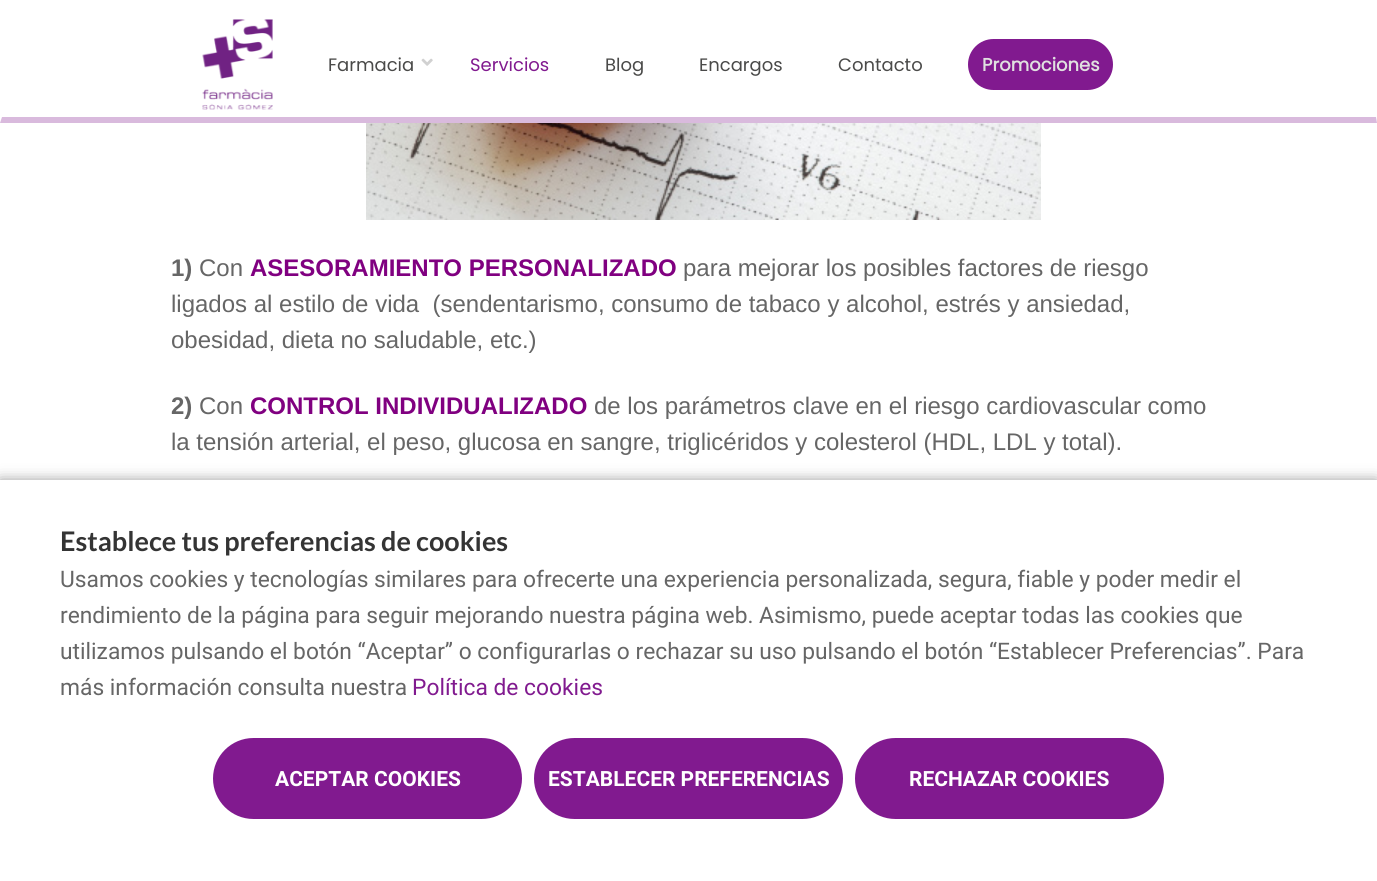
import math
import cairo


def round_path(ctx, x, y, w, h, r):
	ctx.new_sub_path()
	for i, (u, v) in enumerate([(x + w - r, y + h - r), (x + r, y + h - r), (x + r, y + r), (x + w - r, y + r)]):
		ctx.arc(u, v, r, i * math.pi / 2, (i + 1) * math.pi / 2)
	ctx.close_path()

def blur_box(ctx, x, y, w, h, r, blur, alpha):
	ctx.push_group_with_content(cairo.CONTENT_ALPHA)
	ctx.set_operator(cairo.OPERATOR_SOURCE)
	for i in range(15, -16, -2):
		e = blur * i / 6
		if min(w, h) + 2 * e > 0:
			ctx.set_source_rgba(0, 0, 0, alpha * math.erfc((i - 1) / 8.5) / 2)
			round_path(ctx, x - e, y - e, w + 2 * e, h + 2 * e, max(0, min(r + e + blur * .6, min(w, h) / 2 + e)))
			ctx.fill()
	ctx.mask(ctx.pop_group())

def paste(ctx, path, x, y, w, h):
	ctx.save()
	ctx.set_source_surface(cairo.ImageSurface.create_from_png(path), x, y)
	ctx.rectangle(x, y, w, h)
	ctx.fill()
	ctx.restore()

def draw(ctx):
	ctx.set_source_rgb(1, 1, 1)
	ctx.paint()
	ctx.set_source_rgb(0.851, 0.729, 0.867)
	ctx.new_path()
	ctx.move_to(1377, 123)
	ctx.line_to(0, 123)
	ctx.line_to(2, 117)
	ctx.line_to(1376, 117)
	ctx.close_path()
	ctx.fill()
	paste(ctx, 'media/1.png', 202, 19, 71, 91)
	ctx.select_font_face('Poppins')
	ctx.set_font_size(18)
	ctx.set_source_rgb(0.29, 0.29, 0.286)
	ctx.move_to(328, 71)
	ctx.show_text('Farmacia')
	paste(ctx, 'media/2.png', 421, 58, 12, 8)
	ctx.set_source_rgb(0.506, 0.102, 0.561)
	ctx.move_to(470, 71)
	ctx.show_text('Servicios')
	ctx.set_source_rgb(0.29, 0.29, 0.286)
	for x, y, s in [
		(605, 71, 'Blog'),
		(699, 71, 'Encargos'),
		(838, 71, 'Contacto'),
	]:
		ctx.move_to(x, y)
		ctx.show_text(s)
	ctx.set_source_rgb(0.506, 0.102, 0.561)
	round_path(ctx, 968, 39, 145, 51, 25.5)
	ctx.fill()
	ctx.select_font_face('Poppins', cairo.FONT_SLANT_NORMAL, cairo.FONT_WEIGHT_BOLD)
	ctx.set_source_rgb(0.878, 0.878, 0.878)
	ctx.move_to(982, 71)
	ctx.show_text('Promociones')
	paste(ctx, 'media/3.png', 366, 123, 675, 97)
	ctx.select_font_face('Liberation Sans', cairo.FONT_SLANT_NORMAL, cairo.FONT_WEIGHT_BOLD)
	ctx.set_font_size(24)
	ctx.set_source_rgb(0.4, 0.4, 0.4)
	ctx.move_to(171, 276)
	ctx.show_text('1)')
	ctx.select_font_face('Liberation Sans')
	ctx.move_to(199, 276)
	ctx.show_text('Con')
	ctx.select_font_face('Liberation Sans', cairo.FONT_SLANT_NORMAL, cairo.FONT_WEIGHT_BOLD)
	ctx.set_source_rgb(0.502, 0, 0.502)
	ctx.move_to(250, 276)
	ctx.show_text('ASESORAMIENTO PERSONALIZADO')
	ctx.select_font_face('Liberation Sans')
	ctx.set_source_rgb(0.4, 0.4, 0.4)
	for x, y, s in [
		(683, 276, 'para mejorar los posibles factores de riesgo'),
		(171, 312, 'ligados al estilo de vida  (sendentarismo, consumo de tabaco y alcohol, estrés y ansiedad,'),
		(171, 348, 'obesidad, dieta no saludable, etc.)'),
	]:
		ctx.move_to(x, y)
		ctx.show_text(s)
	ctx.select_font_face('Liberation Sans', cairo.FONT_SLANT_NORMAL, cairo.FONT_WEIGHT_BOLD)
	ctx.move_to(171, 414)
	ctx.show_text('2)')
	ctx.select_font_face('Liberation Sans')
	ctx.move_to(199, 414)
	ctx.show_text('Con')
	ctx.select_font_face('Liberation Sans', cairo.FONT_SLANT_NORMAL, cairo.FONT_WEIGHT_BOLD)
	ctx.set_source_rgb(0.502, 0, 0.502)
	ctx.move_to(250, 414)
	ctx.show_text('CONTROL INDIVIDUALIZADO')
	ctx.select_font_face('Liberation Sans')
	ctx.set_source_rgb(0.4, 0.4, 0.4)
	ctx.move_to(594, 414)
	ctx.show_text('de los parámetros clave en el riesgo cardiovascular como')
	ctx.move_to(171, 450)
	ctx.show_text('la tensión arterial, el peso, glucosa en sangre, triglicéridos y colesterol (HDL, LDL y total).')
	ctx.set_source_rgb(0, 0, 0)
	blur_box(ctx, 0, 482, 1377, 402, 0, 7.5, 0.5)
	ctx.set_source_rgb(1, 1, 1)
	ctx.rectangle(0, 480, 1377, 401)
	ctx.fill()
	ctx.select_font_face('Lato', cairo.FONT_SLANT_NORMAL, cairo.FONT_WEIGHT_BOLD)
	ctx.set_font_size(27)
	ctx.set_source_rgb(0.204, 0.204, 0.204)
	ctx.move_to(60, 551)
	ctx.show_text('Establece tus preferencias de cookies')
	ctx.select_font_face('Roboto')
	ctx.set_font_size(22.8)
	ctx.set_source_rgb(0.4, 0.4, 0.4)
	for x, y, s in [
		(60, 587, 'Usamos cookies y tecnologías similares para ofrecerte una experiencia personalizada, segura, fiable y poder medir el'),
		(60, 623, 'rendimiento de la página para seguir mejorando nuestra página web. Asimismo, puede aceptar todas las cookies que'),
		(60, 659, 'utilizamos pulsando el botón “Aceptar” o configurarlas o rechazar su uso pulsando el botón “Establecer Preferencias”. Para'),
		(60, 695, 'más información consulta nuestra'),
	]:
		ctx.move_to(x, y)
		ctx.show_text(s)
	ctx.set_source_rgb(0.506, 0.102, 0.561)
	ctx.move_to(412, 695)
	ctx.show_text('Política de cookies')
	round_path(ctx, 211.5, 736.5, 312, 84, 42)
	ctx.fill_preserve()
	ctx.set_source_rgb(1, 1, 1)
	ctx.set_line_width(3)
	ctx.stroke()
	ctx.select_font_face('Roboto', cairo.FONT_SLANT_NORMAL, cairo.FONT_WEIGHT_BOLD)
	ctx.set_font_size(21)
	ctx.move_to(275, 786)
	ctx.show_text('ACEPTAR COOKIES')
	ctx.set_source_rgb(0.506, 0.102, 0.561)
	round_path(ctx, 532.5, 736.5, 312, 84, 42)
	ctx.fill_preserve()
	ctx.set_source_rgb(1, 1, 1)
	ctx.stroke()
	ctx.move_to(548, 786)
	ctx.show_text('ESTABLECER PREFERENCIAS')
	ctx.set_source_rgb(0.506, 0.102, 0.561)
	round_path(ctx, 853.5, 736.5, 312, 84, 42)
	ctx.fill_preserve()
	ctx.set_source_rgb(1, 1, 1)
	ctx.stroke()
	ctx.move_to(909, 786)
	ctx.show_text('RECHAZAR COOKIES')


surface = cairo.ImageSurface(cairo.FORMAT_RGB24, 1377, 881)
ctx = cairo.Context(surface)
options = cairo.FontOptions()
options.set_hint_metrics(cairo.HINT_METRICS_OFF)
options.set_hint_style(cairo.HINT_STYLE_NONE)
ctx.set_font_options(options)
ctx.set_miter_limit(4)
draw(ctx)
surface.write_to_png('image.png')
